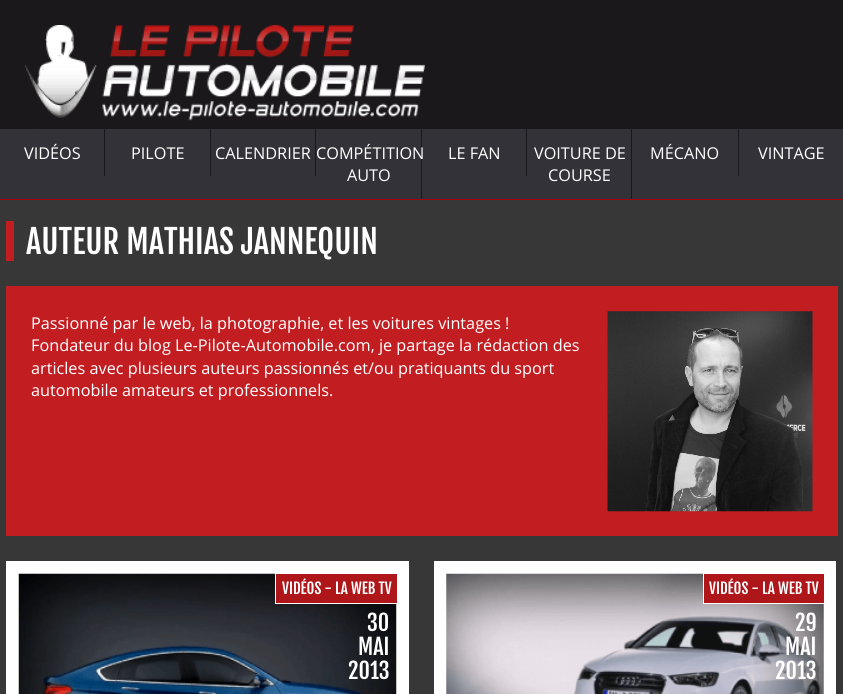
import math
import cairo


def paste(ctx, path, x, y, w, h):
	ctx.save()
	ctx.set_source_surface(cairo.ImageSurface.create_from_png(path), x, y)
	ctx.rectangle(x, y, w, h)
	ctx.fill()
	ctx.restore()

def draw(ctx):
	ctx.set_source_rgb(0.22, 0.216, 0.216)
	ctx.paint()
	ctx.set_source_rgb(0.102, 0.094, 0.106)
	ctx.rectangle(0, 0, 843, 129)
	ctx.fill()
	paste(ctx, 'media/1.png', 25, 25, 400, 104)
	ctx.set_source_rgb(0.2, 0.196, 0.22)
	ctx.rectangle(0, 129, 843, 70)
	ctx.fill()
	ctx.set_source_rgb(0.667, 0.008, 0)
	ctx.rectangle(0, 199, 843, 1)
	ctx.fill()
	ctx.set_source_rgb(0.102, 0.094, 0.106)
	ctx.rectangle(104, 129, 1, 47)
	ctx.fill()
	ctx.select_font_face('Open Sans')
	ctx.set_font_size(16.25)
	ctx.set_source_rgb(1, 1, 1)
	ctx.move_to(24, 159)
	ctx.show_text('VIDÉOS')
	ctx.set_source_rgb(0.102, 0.094, 0.106)
	ctx.rectangle(210, 129, 1, 47)
	ctx.fill()
	ctx.set_source_rgb(1, 1, 1)
	ctx.move_to(131, 159)
	ctx.show_text('PILOTE')
	ctx.set_source_rgb(0.102, 0.094, 0.106)
	ctx.rectangle(315, 129, 1, 47)
	ctx.fill()
	ctx.set_source_rgb(1, 1, 1)
	ctx.move_to(215, 159)
	ctx.show_text('CALENDRIER')
	ctx.set_source_rgb(0.102, 0.094, 0.106)
	ctx.rectangle(421, 129, 1, 70)
	ctx.fill()
	ctx.set_source_rgb(1, 1, 1)
	ctx.move_to(316, 159)
	ctx.show_text('COMPÉTITION')
	ctx.move_to(347, 181)
	ctx.show_text('AUTO')
	ctx.set_source_rgb(0.102, 0.094, 0.106)
	ctx.rectangle(526, 129, 1, 47)
	ctx.fill()
	ctx.set_source_rgb(1, 1, 1)
	ctx.move_to(448, 159)
	ctx.show_text('LE FAN')
	ctx.set_source_rgb(0.102, 0.094, 0.106)
	ctx.rectangle(631, 129, 1, 70)
	ctx.fill()
	ctx.set_source_rgb(1, 1, 1)
	ctx.move_to(534, 159)
	ctx.show_text('VOITURE DE')
	ctx.move_to(548, 181)
	ctx.show_text('COURSE')
	ctx.set_source_rgb(0.102, 0.094, 0.106)
	ctx.rectangle(738, 129, 1, 47)
	ctx.fill()
	ctx.set_source_rgb(1, 1, 1)
	ctx.move_to(650, 159)
	ctx.show_text('MÉCANO')
	ctx.move_to(758, 159)
	ctx.show_text('VINTAGE')
	ctx.select_font_face('Fjalla One')
	ctx.set_font_size(32.5)
	ctx.move_to(26, 254)
	ctx.show_text('AUTEUR MATHIAS JANNEQUIN')
	ctx.set_source_rgb(0.761, 0.118, 0.133)
	ctx.rectangle(6, 221, 8, 40)
	ctx.fill()
	ctx.rectangle(6, 286, 832, 250)
	ctx.fill()
	ctx.select_font_face('Open Sans')
	ctx.set_font_size(16.25)
	ctx.set_source_rgb(1, 1, 1)
	for x, y, s in [
		(31, 329, 'Passionné par le web, la photographie, et les voitures vintages !'),
		(31, 351, 'Fondateur du blog Le-Pilote-Automobile.com, je partage la rédaction des'),
		(31, 374, 'articles avec plusieurs auteurs passionnés et/ou pratiquants du sport'),
		(31, 396, 'automobile amateurs et professionnels.'),
	]:
		ctx.move_to(x, y)
		ctx.show_text(s)
	paste(ctx, 'media/2.png', 607, 311, 206, 201)
	ctx.rectangle(6, 561, 403, 133)
	ctx.fill()
	paste(ctx, 'media/3.png', 18, 573, 379, 121)
	ctx.set_source_rgb(0.682, 0.086, 0.102)
	ctx.rectangle(275.5, 573.5, 122, 30)
	ctx.fill_preserve()
	ctx.set_source_rgb(1, 1, 1)
	ctx.set_line_width(1)
	ctx.stroke()
	ctx.select_font_face('Fjalla One')
	ctx.set_font_size(15)
	ctx.move_to(282, 594)
	ctx.show_text('VIDÉOS - LA WEB TV')
	ctx.set_font_size(22)
	for x, y, s in [
		(367, 631, '30'),
		(358, 655, 'MAI'),
		(348, 679, '2013'),
	]:
		ctx.move_to(x, y)
		ctx.show_text(s)
	ctx.rectangle(434, 561, 402, 133)
	ctx.fill()
	paste(ctx, 'media/4.png', 446, 573, 378, 121)
	ctx.set_source_rgb(0.682, 0.086, 0.102)
	ctx.rectangle(703.5, 573.5, 121, 30)
	ctx.fill_preserve()
	ctx.set_source_rgb(1, 1, 1)
	ctx.stroke()
	ctx.set_font_size(15)
	ctx.move_to(709, 594)
	ctx.show_text('VIDÉOS - LA WEB TV')
	ctx.set_font_size(22)
	for x, y, s in [
		(795, 631, '29'),
		(785, 655, 'MAI'),
		(775, 679, '2013'),
	]:
		ctx.move_to(x, y)
		ctx.show_text(s)


surface = cairo.ImageSurface(cairo.FORMAT_RGB24, 843, 694)
ctx = cairo.Context(surface)
options = cairo.FontOptions()
options.set_hint_metrics(cairo.HINT_METRICS_OFF)
options.set_hint_style(cairo.HINT_STYLE_NONE)
ctx.set_font_options(options)
ctx.set_miter_limit(4)
draw(ctx)
surface.write_to_png('image.png')
